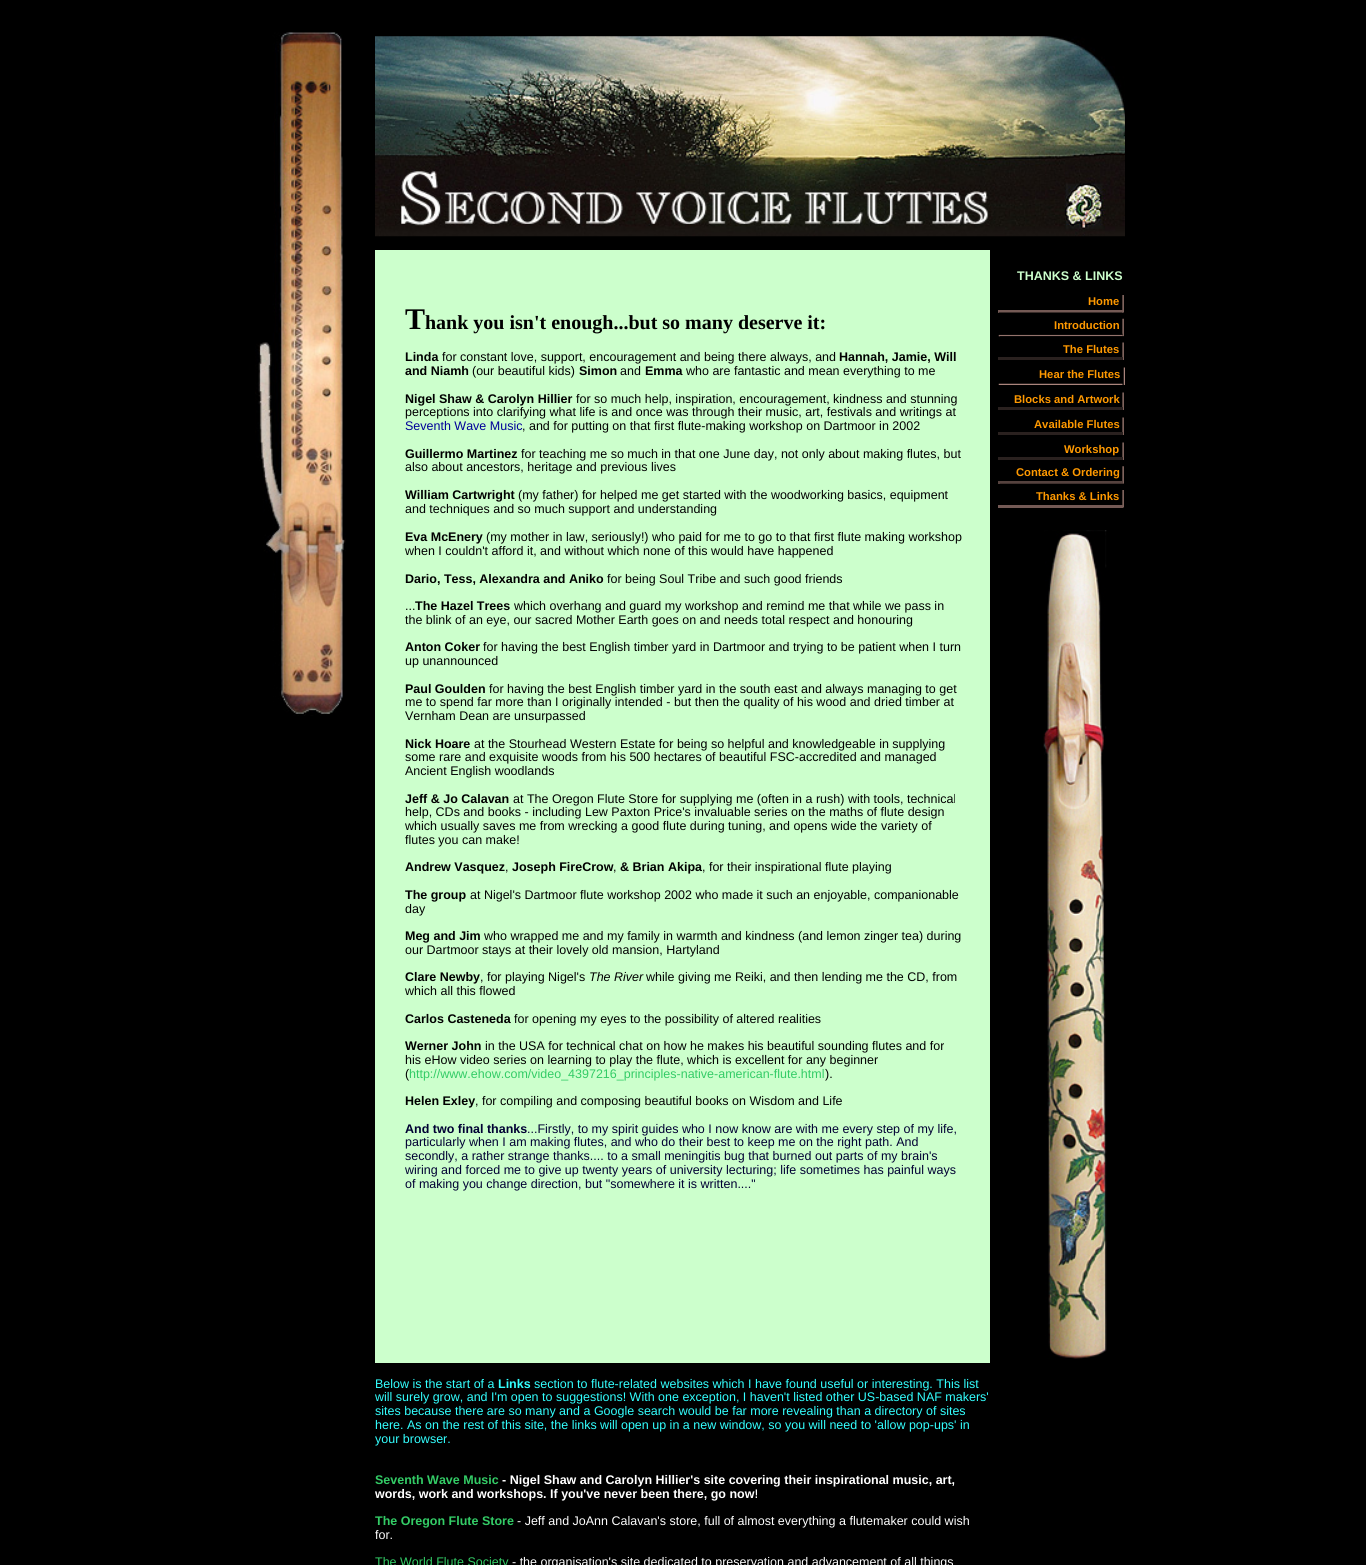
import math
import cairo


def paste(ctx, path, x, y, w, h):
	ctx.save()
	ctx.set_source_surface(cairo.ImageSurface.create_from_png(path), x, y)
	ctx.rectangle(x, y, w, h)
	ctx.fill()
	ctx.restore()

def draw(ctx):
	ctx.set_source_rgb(0, 0, 0)
	ctx.paint()
	paste(ctx, 'media/1.png', 255, 32, 91, 684)
	paste(ctx, 'media/2.png', 375, 36, 750, 201)
	ctx.set_source_rgb(0.8, 1, 0.8)
	ctx.rectangle(375, 250, 30, 1113)
	ctx.fill()
	ctx.rectangle(405, 250, 558, 1113)
	ctx.fill()
	ctx.select_font_face('Liberation Serif', cairo.FONT_SLANT_NORMAL, cairo.FONT_WEIGHT_BOLD)
	ctx.set_font_size(30)
	ctx.set_source_rgb(0, 0, 0)
	ctx.move_to(405, 329)
	ctx.show_text('T')
	ctx.set_font_size(20)
	ctx.move_to(425, 329)
	ctx.show_text('hank you isn\'t enough...but so many deserve it:')
	ctx.select_font_face('Liberation Sans', cairo.FONT_SLANT_NORMAL, cairo.FONT_WEIGHT_BOLD)
	ctx.set_font_size(12.5)
	ctx.move_to(405, 361)
	ctx.show_text('Linda')
	ctx.select_font_face('Liberation Sans')
	ctx.move_to(442, 361)
	ctx.show_text('for constant love, support, encouragement and being there always, and')
	ctx.select_font_face('Liberation Sans', cairo.FONT_SLANT_NORMAL, cairo.FONT_WEIGHT_BOLD)
	ctx.move_to(839, 361)
	ctx.show_text('Hannah, Jamie, Will')
	ctx.move_to(405, 375)
	ctx.show_text('and Niamh')
	ctx.select_font_face('Liberation Sans')
	ctx.move_to(472, 375)
	ctx.show_text('(our beautiful kids)')
	ctx.select_font_face('Liberation Sans', cairo.FONT_SLANT_NORMAL, cairo.FONT_WEIGHT_BOLD)
	ctx.move_to(579, 375)
	ctx.show_text('Simon')
	ctx.select_font_face('Liberation Sans')
	ctx.move_to(620, 375)
	ctx.show_text('and')
	ctx.select_font_face('Liberation Sans', cairo.FONT_SLANT_NORMAL, cairo.FONT_WEIGHT_BOLD)
	ctx.move_to(645, 375)
	ctx.show_text('Emma')
	ctx.select_font_face('Liberation Sans')
	ctx.move_to(686, 375)
	ctx.show_text('who are fantastic and mean everything to me')
	ctx.select_font_face('Liberation Sans', cairo.FONT_SLANT_NORMAL, cairo.FONT_WEIGHT_BOLD)
	ctx.move_to(405, 403)
	ctx.show_text('Nigel Shaw & Carolyn Hillier')
	ctx.select_font_face('Liberation Sans')
	ctx.move_to(576, 403)
	ctx.show_text('for so much help, inspiration, encouragement, kindness and stunning')
	ctx.move_to(405, 416)
	ctx.show_text('perceptions into clarifying what life is and once was through their music, art, festivals and writings at')
	ctx.set_source_rgb(0, 0, 0.6)
	ctx.move_to(405, 430)
	ctx.show_text('Seventh Wave Music')
	ctx.set_source_rgb(0, 0, 0)
	ctx.move_to(522, 430)
	ctx.show_text(', and for putting on that first flute-making workshop on Dartmoor in 2002')
	ctx.select_font_face('Liberation Sans', cairo.FONT_SLANT_NORMAL, cairo.FONT_WEIGHT_BOLD)
	ctx.move_to(405, 458)
	ctx.show_text('Guillermo Martinez')
	ctx.select_font_face('Liberation Sans')
	ctx.move_to(521, 458)
	ctx.show_text('for teaching me so much in that one June day, not only about making flutes, but')
	ctx.move_to(405, 471)
	ctx.show_text('also about ancestors, heritage and previous lives')
	ctx.select_font_face('Liberation Sans', cairo.FONT_SLANT_NORMAL, cairo.FONT_WEIGHT_BOLD)
	ctx.move_to(405, 499)
	ctx.show_text('William Cartwright')
	ctx.select_font_face('Liberation Sans')
	ctx.move_to(518, 499)
	ctx.show_text('(my father) for helped me get started with the woodworking basics, equipment')
	ctx.move_to(405, 513)
	ctx.show_text('and techniques and so much support and understanding')
	ctx.set_source_rgb(0.8, 1, 0.8)
	ctx.rectangle(963, 250, 27, 1113)
	ctx.fill()
	ctx.select_font_face('Liberation Sans', cairo.FONT_SLANT_NORMAL, cairo.FONT_WEIGHT_BOLD)
	ctx.move_to(1017, 280)
	ctx.show_text('THANKS & LINKS')
	ctx.set_font_size(11.25)
	ctx.set_source_rgb(1, 0.6, 0)
	ctx.move_to(1088, 305)
	ctx.show_text('Home')
	paste(ctx, 'media/3.png', 1122, 295, 2, 18)
	ctx.set_source_rgb(0.455, 0.353, 0.333)
	ctx.rectangle(998, 310, 125, 3)
	ctx.fill()
	paste(ctx, 'media/4.png', 998, 312, 125, 1)
	ctx.set_source_rgb(1, 0.6, 0)
	ctx.move_to(1054, 329)
	ctx.show_text('Introduction')
	paste(ctx, 'media/5.png', 1122, 318, 2, 19)
	paste(ctx, 'media/6.png', 998, 333, 125, 4)
	paste(ctx, 'media/7.png', 1000, 336, 124, 1)
	ctx.move_to(1063, 353)
	ctx.show_text('The Flutes')
	paste(ctx, 'media/8.png', 1122, 342, 2, 18)
	ctx.set_source_rgb(0.165, 0.129, 0.122)
	ctx.rectangle(998, 357, 125, 3)
	ctx.fill()
	ctx.set_source_rgb(1, 0.6, 0)
	ctx.move_to(1039, 378)
	ctx.show_text('Hear the Flutes')
	paste(ctx, 'media/9.png', 1123, 367, 2, 18)
	paste(ctx, 'media/10.png', 998, 383, 125, 2)
	ctx.move_to(1014, 403)
	ctx.show_text('Blocks and Artwork')
	paste(ctx, 'media/8.png', 1122, 392, 2, 18)
	ctx.set_source_rgb(0.165, 0.129, 0.122)
	ctx.rectangle(998, 407, 125, 3)
	ctx.fill()
	ctx.set_source_rgb(1, 0.6, 0)
	ctx.move_to(1034, 428)
	ctx.show_text('Available Flutes')
	paste(ctx, 'media/8.png', 1122, 417, 2, 18)
	ctx.set_source_rgb(0.165, 0.129, 0.122)
	ctx.rectangle(998, 432, 125, 3)
	ctx.fill()
	ctx.set_source_rgb(1, 0.6, 0)
	ctx.move_to(1064, 453)
	ctx.show_text('Workshop')
	paste(ctx, 'media/8.png', 1122, 442, 2, 18)
	ctx.set_source_rgb(0.165, 0.129, 0.122)
	ctx.rectangle(998, 457, 125, 3)
	ctx.fill()
	ctx.set_source_rgb(1, 0.6, 0)
	ctx.move_to(1016, 476)
	ctx.show_text('Contact & Ordering')
	paste(ctx, 'media/11.png', 1122, 466, 2, 18)
	ctx.set_source_rgb(0.333, 0.259, 0.243)
	ctx.rectangle(998, 481, 125, 3)
	ctx.fill()
	paste(ctx, 'media/12.png', 1000, 483, 124, 1)
	ctx.set_source_rgb(1, 0.6, 0)
	ctx.move_to(1036, 500)
	ctx.show_text('Thanks & Links')
	paste(ctx, 'media/3.png', 1122, 490, 2, 18)
	ctx.set_source_rgb(0.455, 0.353, 0.333)
	ctx.rectangle(998, 505, 125, 3)
	ctx.fill()
	ctx.set_font_size(12.5)
	ctx.set_source_rgb(0, 0, 0)
	ctx.move_to(405, 541)
	ctx.show_text('Eva McEnery')
	ctx.select_font_face('Liberation Sans')
	ctx.move_to(486, 541)
	ctx.show_text('(my mother in law, seriously!) who paid for me to go to that first flute making workshop')
	ctx.move_to(405, 555)
	ctx.show_text('when I couldn\'t afford it, and without which none of this would have happened')
	ctx.select_font_face('Liberation Sans', cairo.FONT_SLANT_NORMAL, cairo.FONT_WEIGHT_BOLD)
	ctx.move_to(405, 583)
	ctx.show_text('Dario, Tess, Alexandra and Aniko')
	ctx.select_font_face('Liberation Sans')
	ctx.move_to(607, 583)
	ctx.show_text('for being Soul Tribe and such good friends')
	ctx.move_to(405, 610)
	ctx.show_text('...')
	ctx.select_font_face('Liberation Sans', cairo.FONT_SLANT_NORMAL, cairo.FONT_WEIGHT_BOLD)
	ctx.move_to(415, 610)
	ctx.show_text('The Hazel Trees')
	ctx.select_font_face('Liberation Sans')
	ctx.move_to(514, 610)
	ctx.show_text('which overhang and guard my workshop and remind me that while we pass in')
	ctx.move_to(405, 624)
	ctx.show_text('the blink of an eye, our sacred Mother Earth goes on and needs total respect and honouring')
	ctx.select_font_face('Liberation Sans', cairo.FONT_SLANT_NORMAL, cairo.FONT_WEIGHT_BOLD)
	ctx.move_to(405, 651)
	ctx.show_text('Anton Coker')
	ctx.select_font_face('Liberation Sans')
	ctx.move_to(483, 651)
	ctx.show_text('for having the best English timber yard in Dartmoor and trying to be patient when I turn')
	ctx.move_to(405, 665)
	ctx.show_text('up unannounced')
	ctx.select_font_face('Liberation Sans', cairo.FONT_SLANT_NORMAL, cairo.FONT_WEIGHT_BOLD)
	ctx.move_to(405, 693)
	ctx.show_text('Paul Goulden')
	ctx.select_font_face('Liberation Sans')
	for x, y, s in [
		(489, 693, 'for having the best English timber yard in the south east and always managing to get'),
		(405, 706, 'me to spend far more than I originally intended - but then the quality of his wood and dried timber at'),
		(405, 720, 'Vernham Dean are unsurpassed'),
	]:
		ctx.move_to(x, y)
		ctx.show_text(s)
	ctx.select_font_face('Liberation Sans', cairo.FONT_SLANT_NORMAL, cairo.FONT_WEIGHT_BOLD)
	ctx.move_to(405, 748)
	ctx.show_text('Nick Hoare')
	ctx.select_font_face('Liberation Sans')
	for x, y, s in [
		(474, 748, 'at the Stourhead Western Estate for being so helpful and knowledgeable in supplying'),
		(405, 761, 'some rare and exquisite woods from his 500 hectares of beautiful FSC-accredited and managed'),
		(405, 775, 'Ancient English woodlands'),
	]:
		ctx.move_to(x, y)
		ctx.show_text(s)
	ctx.select_font_face('Liberation Sans', cairo.FONT_SLANT_NORMAL, cairo.FONT_WEIGHT_BOLD)
	ctx.move_to(405, 803)
	ctx.show_text('Jeff & Jo Calavan')
	ctx.select_font_face('Liberation Sans')
	for x, y, s in [
		(513, 803, 'at The Oregon Flute Store for supplying me (often in a rush) with tools, technical'),
		(405, 816, 'help, CDs and books - including Lew Paxton Price\'s invaluable series on the maths of flute design'),
		(405, 830, 'which usually saves me from wrecking a good flute during tuning, and opens wide the variety of'),
		(405, 844, 'flutes you can make!'),
	]:
		ctx.move_to(x, y)
		ctx.show_text(s)
	ctx.select_font_face('Liberation Sans', cairo.FONT_SLANT_NORMAL, cairo.FONT_WEIGHT_BOLD)
	ctx.move_to(405, 871)
	ctx.show_text('Andrew Vasquez')
	ctx.select_font_face('Liberation Sans')
	ctx.move_to(505, 871)
	ctx.show_text(',')
	ctx.select_font_face('Liberation Sans', cairo.FONT_SLANT_NORMAL, cairo.FONT_WEIGHT_BOLD)
	ctx.move_to(512, 871)
	ctx.show_text('Joseph FireCrow')
	ctx.select_font_face('Liberation Sans')
	ctx.move_to(613, 871)
	ctx.show_text(',')
	ctx.select_font_face('Liberation Sans', cairo.FONT_SLANT_NORMAL, cairo.FONT_WEIGHT_BOLD)
	ctx.move_to(620, 871)
	ctx.show_text('& Brian Akipa')
	ctx.select_font_face('Liberation Sans')
	ctx.move_to(702, 871)
	ctx.show_text(', for their inspirational flute playing')
	ctx.select_font_face('Liberation Sans', cairo.FONT_SLANT_NORMAL, cairo.FONT_WEIGHT_BOLD)
	ctx.move_to(405, 899)
	ctx.show_text('The group')
	ctx.select_font_face('Liberation Sans')
	ctx.move_to(470, 899)
	ctx.show_text('at Nigel\'s Dartmoor flute workshop 2002 who made it such an enjoyable, companionable')
	ctx.move_to(405, 913)
	ctx.show_text('day')
	ctx.select_font_face('Liberation Sans', cairo.FONT_SLANT_NORMAL, cairo.FONT_WEIGHT_BOLD)
	ctx.move_to(405, 940)
	ctx.show_text('Meg and Jim')
	ctx.select_font_face('Liberation Sans')
	ctx.move_to(484, 940)
	ctx.show_text('who wrapped me and my family in warmth and kindness (and lemon zinger tea) during')
	ctx.move_to(405, 954)
	ctx.show_text('our Dartmoor stays at their lovely old mansion, Hartyland')
	paste(ctx, 'media/13.png', 1043, 530, 64, 829)
	ctx.select_font_face('Liberation Sans', cairo.FONT_SLANT_NORMAL, cairo.FONT_WEIGHT_BOLD)
	ctx.move_to(405, 981)
	ctx.show_text('Clare Newby')
	ctx.select_font_face('Liberation Sans')
	ctx.move_to(480, 981)
	ctx.show_text(', for playing Nigel\'s')
	ctx.select_font_face('Liberation Sans', cairo.FONT_SLANT_ITALIC)
	ctx.move_to(589, 981)
	ctx.show_text('The River')
	ctx.select_font_face('Liberation Sans')
	ctx.move_to(646, 981)
	ctx.show_text('while giving me Reiki, and then lending me the CD, from')
	ctx.move_to(405, 995)
	ctx.show_text('which all this flowed')
	ctx.select_font_face('Liberation Sans', cairo.FONT_SLANT_NORMAL, cairo.FONT_WEIGHT_BOLD)
	ctx.move_to(405, 1023)
	ctx.show_text('Carlos Casteneda')
	ctx.select_font_face('Liberation Sans')
	ctx.move_to(514, 1023)
	ctx.show_text('for opening my eyes to the possibility of altered realities')
	ctx.select_font_face('Liberation Sans', cairo.FONT_SLANT_NORMAL, cairo.FONT_WEIGHT_BOLD)
	ctx.move_to(405, 1050)
	ctx.show_text('Werner John')
	ctx.select_font_face('Liberation Sans')
	for x, y, s in [
		(485, 1050, 'in the USA for technical chat on how he makes his beautiful sounding flutes and for'),
		(405, 1064, 'his eHow video series on learning to play the flute, which is excellent for any beginner'),
		(405, 1078, '('),
	]:
		ctx.move_to(x, y)
		ctx.show_text(s)
	ctx.set_source_rgb(0.2, 0.8, 0.4)
	ctx.move_to(409, 1078)
	ctx.show_text('http://www.ehow.com/video_4397216_principles-native-american-flute.html')
	ctx.set_source_rgb(0, 0, 0)
	ctx.move_to(825, 1078)
	ctx.show_text(').')
	ctx.select_font_face('Liberation Sans', cairo.FONT_SLANT_NORMAL, cairo.FONT_WEIGHT_BOLD)
	ctx.move_to(405, 1105)
	ctx.show_text('Helen Exley')
	ctx.select_font_face('Liberation Sans')
	ctx.move_to(475, 1105)
	ctx.show_text(', for compiling and composing beautiful books on Wisdom and Life')
	ctx.select_font_face('Liberation Sans', cairo.FONT_SLANT_NORMAL, cairo.FONT_WEIGHT_BOLD)
	ctx.set_source_rgb(0, 0, 0.2)
	ctx.move_to(405, 1133)
	ctx.show_text('And two final thanks')
	ctx.select_font_face('Liberation Sans')
	for x, y, s in [
		(527, 1133, '...Firstly, to my spirit guides who I now know are with me every step of my life,'),
		(405, 1146, 'particularly when I am making flutes, and who do their best to keep me on the right path. And'),
		(405, 1160, 'secondly, a rather strange thanks.... to a small meningitis bug that burned out parts of my brain\'s'),
		(405, 1174, 'wiring and forced me to give up twenty years of university lecturing; life sometimes has painful ways'),
		(405, 1188, 'of making you change direction, but "somewhere it is written...."'),
	]:
		ctx.move_to(x, y)
		ctx.show_text(s)
	ctx.set_source_rgb(0.2, 1, 1)
	ctx.move_to(375, 1388)
	ctx.show_text('Below is the start of a')
	ctx.select_font_face('Liberation Sans', cairo.FONT_SLANT_NORMAL, cairo.FONT_WEIGHT_BOLD)
	ctx.move_to(498, 1388)
	ctx.show_text('Links')
	ctx.select_font_face('Liberation Sans')
	for x, y, s in [
		(534, 1388, 'section to flute-related websites which I have found useful or interesting. This list'),
		(375, 1401, 'will surely grow, and I\'m open to suggestions! With one exception, I haven\'t listed other US-based NAF makers\''),
		(375, 1415, 'sites because there are so many and a Google search would be far more revealing than a directory of sites'),
		(375, 1429, 'here. As on the rest of this site, the links will open up in a new window, so you will need to \'allow pop-ups\' in'),
		(375, 1443, 'your browser.'),
	]:
		ctx.move_to(x, y)
		ctx.show_text(s)
	ctx.select_font_face('Liberation Sans', cairo.FONT_SLANT_NORMAL, cairo.FONT_WEIGHT_BOLD)
	ctx.set_source_rgb(0.2, 0.8, 0.4)
	ctx.move_to(375, 1484)
	ctx.show_text('Seventh Wave Music')
	ctx.set_source_rgb(1, 1, 1)
	ctx.move_to(502, 1484)
	ctx.show_text('- Nigel Shaw and Carolyn Hillier\'s site covering their inspirational music, art,')
	ctx.move_to(375, 1498)
	ctx.show_text('words, work and workshops. If you\'ve never been there, go now!')
	ctx.set_source_rgb(0.2, 0.8, 0.4)
	ctx.move_to(375, 1525)
	ctx.show_text('The Oregon Flute Store')
	ctx.select_font_face('Liberation Sans')
	ctx.set_source_rgb(1, 1, 1)
	ctx.move_to(517, 1525)
	ctx.show_text('- Jeff and JoAnn Calavan\'s store, full of almost everything a flutemaker could wish')
	ctx.move_to(375, 1539)
	ctx.show_text('for.')
	ctx.set_source_rgb(0.2, 0.8, 0.4)
	ctx.move_to(375, 1566)
	ctx.show_text('The World Flute Society')
	ctx.set_source_rgb(1, 1, 1)
	ctx.move_to(512, 1566)
	ctx.show_text('- the organisation\'s site dedicated to preservation and advancement of all things')


surface = cairo.ImageSurface(cairo.FORMAT_RGB24, 1366, 1565)
ctx = cairo.Context(surface)
options = cairo.FontOptions()
options.set_hint_metrics(cairo.HINT_METRICS_OFF)
options.set_hint_style(cairo.HINT_STYLE_NONE)
ctx.set_font_options(options)
ctx.set_miter_limit(4)
draw(ctx)
surface.write_to_png('image.png')
